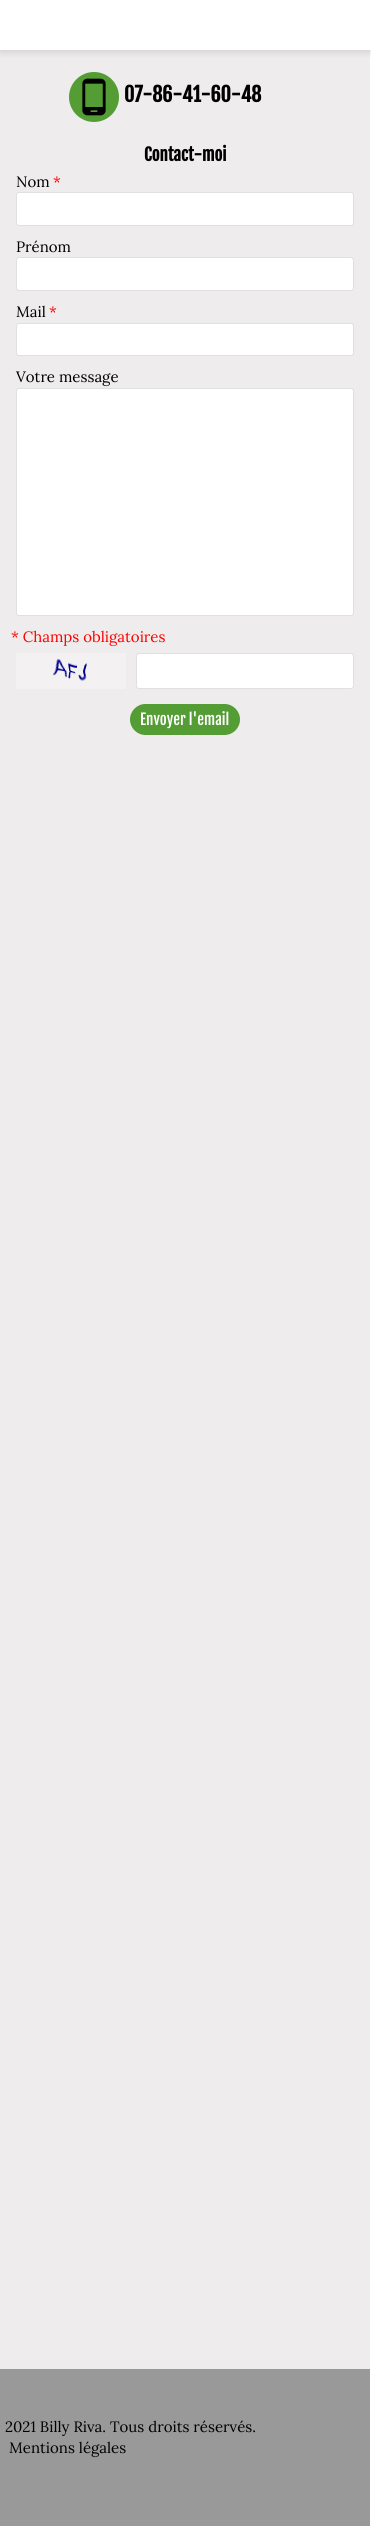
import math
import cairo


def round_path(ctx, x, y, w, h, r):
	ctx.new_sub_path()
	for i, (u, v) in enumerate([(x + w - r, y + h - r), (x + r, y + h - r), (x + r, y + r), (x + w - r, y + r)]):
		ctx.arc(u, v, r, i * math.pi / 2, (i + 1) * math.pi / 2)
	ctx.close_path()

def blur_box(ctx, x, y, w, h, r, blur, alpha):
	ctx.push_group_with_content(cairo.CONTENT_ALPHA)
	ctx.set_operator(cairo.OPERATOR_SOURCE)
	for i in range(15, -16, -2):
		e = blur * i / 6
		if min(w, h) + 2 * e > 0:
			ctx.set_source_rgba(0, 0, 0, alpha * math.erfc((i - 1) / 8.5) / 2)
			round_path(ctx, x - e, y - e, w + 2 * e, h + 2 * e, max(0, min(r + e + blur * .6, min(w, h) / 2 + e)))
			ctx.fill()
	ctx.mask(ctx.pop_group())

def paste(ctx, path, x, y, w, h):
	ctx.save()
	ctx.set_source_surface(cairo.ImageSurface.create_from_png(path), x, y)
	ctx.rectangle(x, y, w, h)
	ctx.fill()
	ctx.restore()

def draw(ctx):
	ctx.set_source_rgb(1, 1, 1)
	ctx.paint()
	ctx.set_source_rgb(0.933, 0.925, 0.925)
	ctx.rectangle(0, 50, 370, 2319)
	ctx.fill()
	ctx.set_source_rgb(0, 0, 0)
	blur_box(ctx, 0, 1, 371, 50, 0, 4.5, 0.15)
	ctx.set_source_rgb(1, 1, 1)
	ctx.rectangle(0, 0, 371, 50)
	ctx.fill()
	ctx.set_source_rgb(0.329, 0.616, 0.204)
	ctx.arc(94, 97, 25, 0, 2 * math.pi)
	ctx.fill()
	paste(ctx, 'media/1.png', 82, 78, 24, 38)
	ctx.select_font_face('Fjalla One', cairo.FONT_SLANT_NORMAL, cairo.FONT_WEIGHT_BOLD)
	ctx.set_font_size(20)
	ctx.set_source_rgb(0, 0, 0)
	ctx.move_to(124, 102)
	ctx.show_text('07-86-41-60-48')
	ctx.set_font_size(17)
	ctx.move_to(144, 161)
	ctx.show_text('Contact-moi')
	ctx.select_font_face('Lora')
	ctx.set_font_size(15)
	ctx.move_to(16, 187)
	ctx.show_text('Nom')
	ctx.set_source_rgb(1, 0, 0)
	ctx.move_to(53, 187)
	ctx.show_text('*')
	ctx.set_source_rgb(1, 1, 1)
	round_path(ctx, 16.5, 192.5, 337, 33, 2.5)
	ctx.fill_preserve()
	ctx.set_source_rgb(0.878, 0.878, 0.878)
	ctx.set_line_width(1)
	ctx.stroke()
	ctx.set_source_rgb(0, 0, 0)
	ctx.move_to(16, 252)
	ctx.show_text('Prénom')
	ctx.set_source_rgb(1, 1, 1)
	round_path(ctx, 16.5, 257.5, 337, 33, 2.5)
	ctx.fill_preserve()
	ctx.set_source_rgb(0.878, 0.878, 0.878)
	ctx.stroke()
	ctx.set_source_rgb(0, 0, 0)
	ctx.move_to(16, 317)
	ctx.show_text('Mail')
	ctx.set_source_rgb(1, 0, 0)
	ctx.move_to(49, 317)
	ctx.show_text('*')
	ctx.set_source_rgb(1, 1, 1)
	round_path(ctx, 16.5, 323.5, 337, 32, 2.5)
	ctx.fill_preserve()
	ctx.set_source_rgb(0.878, 0.878, 0.878)
	ctx.stroke()
	ctx.set_source_rgb(0, 0, 0)
	ctx.move_to(16, 382)
	ctx.show_text('Votre message')
	ctx.set_source_rgb(1, 1, 1)
	round_path(ctx, 16.5, 388.5, 337, 227, 2.5)
	ctx.fill_preserve()
	ctx.set_source_rgb(0.878, 0.878, 0.878)
	ctx.stroke()
	ctx.set_source_rgb(1, 0, 0)
	ctx.move_to(11, 642)
	ctx.show_text('* Champs obligatoires')
	paste(ctx, 'media/2.png', 16, 653, 110, 36)
	ctx.set_source_rgb(1, 1, 1)
	round_path(ctx, 136.5, 653.5, 217, 35, 2.5)
	ctx.fill_preserve()
	ctx.set_source_rgb(0.878, 0.878, 0.878)
	ctx.stroke()
	ctx.set_source_rgb(0.329, 0.616, 0.204)
	round_path(ctx, 130, 704, 110, 31, 15.5)
	ctx.fill()
	ctx.select_font_face('Fjalla One')
	ctx.set_source_rgb(1, 1, 1)
	ctx.move_to(140, 725)
	ctx.show_text('Envoyer l\'email')
	ctx.set_source_rgb(0.6, 0.6, 0.6)
	ctx.rectangle(0, 2369, 370, 157)
	ctx.fill()
	ctx.select_font_face('Lora')
	ctx.set_source_rgb(0, 0, 0)
	ctx.move_to(5, 2432)
	ctx.show_text('2021 Billy Riva. Tous droits réservés.')
	ctx.move_to(9, 2453)
	ctx.show_text('Mentions légales')


surface = cairo.ImageSurface(cairo.FORMAT_RGB24, 371, 2526)
ctx = cairo.Context(surface)
options = cairo.FontOptions()
options.set_hint_metrics(cairo.HINT_METRICS_OFF)
options.set_hint_style(cairo.HINT_STYLE_NONE)
ctx.set_font_options(options)
ctx.set_miter_limit(4)
draw(ctx)
surface.write_to_png('image.png')
